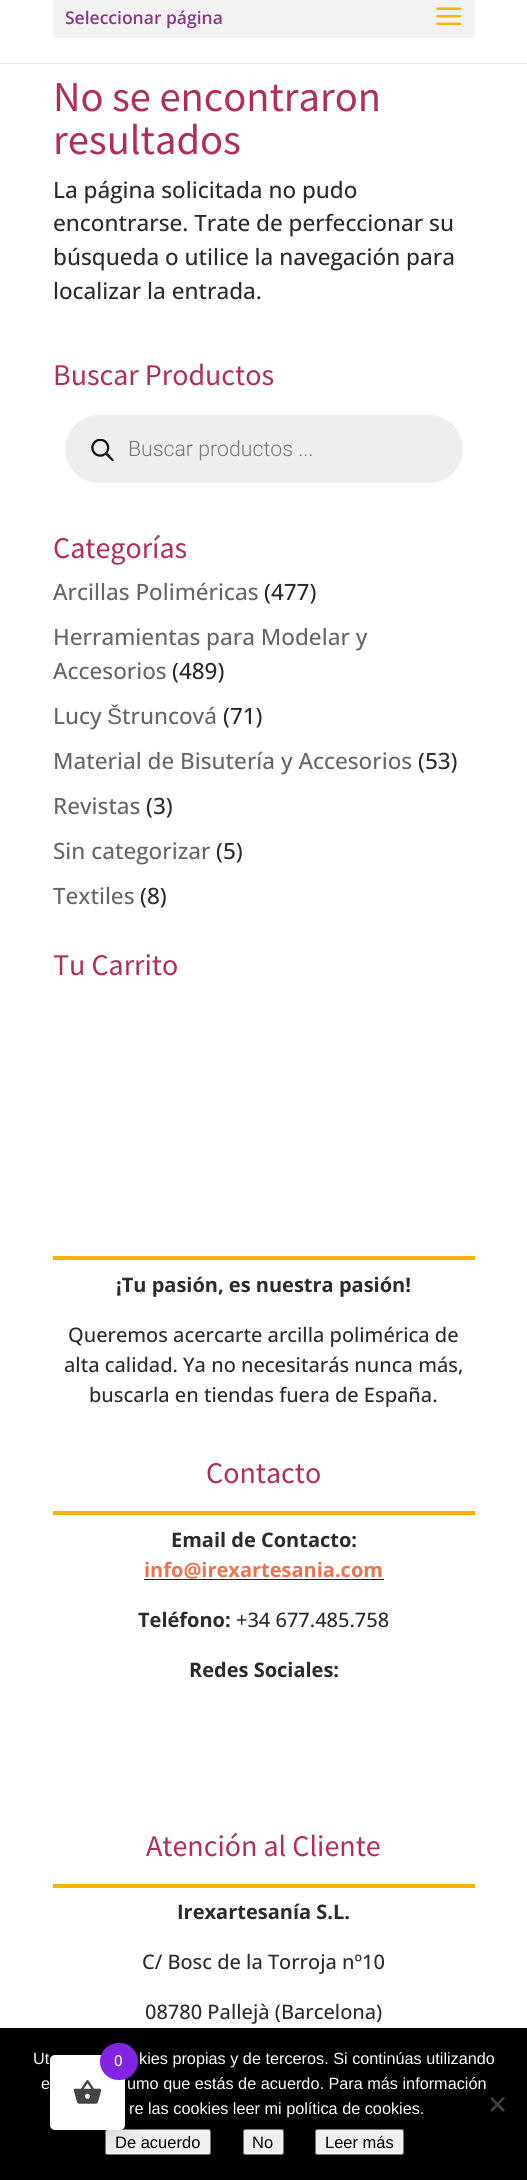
import math
import cairo


def round_path(ctx, x, y, w, h, r):
	ctx.new_sub_path()
	for i, (u, v) in enumerate([(x + w - r, y + h - r), (x + r, y + h - r), (x + r, y + r), (x + w - r, y + r)]):
		ctx.arc(u, v, r, i * math.pi / 2, (i + 1) * math.pi / 2)
	ctx.close_path()

def blur_box(ctx, x, y, w, h, r, blur, alpha):
	ctx.push_group_with_content(cairo.CONTENT_ALPHA)
	ctx.set_operator(cairo.OPERATOR_SOURCE)
	for i in range(15, -16, -2):
		e = blur * i / 6
		if min(w, h) + 2 * e > 0:
			ctx.set_source_rgba(0, 0, 0, alpha * math.erfc((i - 1) / 8.5) / 2)
			round_path(ctx, x - e, y - e, w + 2 * e, h + 2 * e, max(0, min(r + e + blur * .6, min(w, h) / 2 + e)))
			ctx.fill()
	ctx.mask(ctx.pop_group())

def paste(ctx, path, x, y, w, h):
	ctx.save()
	ctx.set_source_surface(cairo.ImageSurface.create_from_png(path), x, y)
	ctx.rectangle(x, y, w, h)
	ctx.fill()
	ctx.restore()

def draw(ctx):
	ctx.set_source_rgb(1, 1, 1)
	ctx.paint()
	ctx.set_source_rgb(0.902, 0.902, 0.902)
	ctx.new_path()
	ctx.move_to(0, 62)
	ctx.line_to(0, 64)
	ctx.line_to(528, 64)
	ctx.line_to(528, -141)
	ctx.line_to(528, 62)
	ctx.close_path()
	ctx.fill()
	ctx.set_source_rgb(1, 1, 1)
	ctx.rectangle(0, 62, 527, 1)
	ctx.fill()
	ctx.set_source_rgb(0.949, 0.949, 0.949)
	round_path(ctx, 53, -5, 422, 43, 6)
	ctx.fill()
	ctx.select_font_face('Open Sans SemiBold')
	ctx.set_font_size(17.5)
	ctx.set_source_rgb(0.545, 0.208, 0.525)
	ctx.move_to(65, 24)
	ctx.show_text('Seleccionar página')
	paste(ctx, 'media/1.png', 436, 7, 26, 18)
	ctx.select_font_face('Source Sans Pro')
	ctx.set_font_size(42.5)
	ctx.set_source_rgb(0.702, 0.173, 0.369)
	ctx.move_to(53, 111)
	ctx.show_text('No se encontraron')
	ctx.move_to(53, 154)
	ctx.show_text('resultados')
	ctx.select_font_face('Open Sans Medium')
	ctx.set_font_size(22.5)
	ctx.set_source_rgb(0.169, 0.169, 0.169)
	for x, y, s in [
		(53, 198, 'La página solicitada no pudo'),
		(53, 231, 'encontrarse. Trate de perfeccionar su'),
		(53, 265, 'búsqueda o utilice la navegación para'),
		(53, 299, 'localizar la entrada.'),
	]:
		ctx.move_to(x, y)
		ctx.show_text(s)
	ctx.select_font_face('Source Sans Pro')
	ctx.set_font_size(30)
	ctx.set_source_rgb(0.702, 0.173, 0.369)
	ctx.move_to(53, 385)
	ctx.show_text('Buscar Productos')
	ctx.set_source_rgb(0.933, 0.933, 0.933)
	round_path(ctx, 65, 415, 398, 68, 34)
	ctx.fill()
	paste(ctx, 'media/2.png', 91, 439, 23, 22)
	ctx.select_font_face('Roboto Light')
	ctx.set_font_size(21.25)
	ctx.set_source_rgb(0.467, 0.467, 0.467)
	ctx.move_to(128, 456)
	ctx.show_text('Buscar productos ...')
	ctx.select_font_face('Source Sans Pro')
	ctx.set_font_size(30)
	ctx.set_source_rgb(0.702, 0.173, 0.369)
	ctx.move_to(53, 558)
	ctx.show_text('Categorías')
	ctx.select_font_face('Open Sans Medium')
	ctx.set_font_size(22.5)
	ctx.set_source_rgb(0.4, 0.4, 0.4)
	ctx.move_to(53, 600)
	ctx.show_text('Arcillas Poliméricas')
	ctx.set_source_rgb(0.169, 0.169, 0.169)
	ctx.move_to(264, 600)
	ctx.show_text('(477)')
	ctx.set_source_rgb(0.4, 0.4, 0.4)
	ctx.move_to(53, 645)
	ctx.show_text('Herramientas para Modelar y')
	ctx.move_to(53, 679)
	ctx.show_text('Accesorios')
	ctx.set_source_rgb(0.169, 0.169, 0.169)
	ctx.move_to(172, 679)
	ctx.show_text('(489)')
	ctx.set_source_rgb(0.4, 0.4, 0.4)
	ctx.move_to(53, 724)
	ctx.show_text('Lucy')
	ctx.select_font_face('Liberation Sans')
	ctx.move_to(107, 724)
	ctx.show_text('Š')
	ctx.select_font_face('Open Sans Medium')
	ctx.move_to(122, 724)
	ctx.show_text('truncová')
	ctx.set_source_rgb(0.169, 0.169, 0.169)
	ctx.move_to(223, 724)
	ctx.show_text('(71)')
	ctx.set_source_rgb(0.4, 0.4, 0.4)
	ctx.move_to(53, 769)
	ctx.show_text('Material de Bisutería y Accesorios')
	ctx.set_source_rgb(0.169, 0.169, 0.169)
	ctx.move_to(418, 769)
	ctx.show_text('(53)')
	ctx.set_source_rgb(0.4, 0.4, 0.4)
	ctx.move_to(53, 814)
	ctx.show_text('Revistas')
	ctx.set_source_rgb(0.169, 0.169, 0.169)
	ctx.move_to(146, 814)
	ctx.show_text('(3)')
	ctx.set_source_rgb(0.4, 0.4, 0.4)
	ctx.move_to(53, 859)
	ctx.show_text('Sin categorizar')
	ctx.set_source_rgb(0.169, 0.169, 0.169)
	ctx.move_to(216, 859)
	ctx.show_text('(5)')
	ctx.set_source_rgb(0.4, 0.4, 0.4)
	ctx.move_to(53, 904)
	ctx.show_text('Textiles')
	ctx.set_source_rgb(0.169, 0.169, 0.169)
	ctx.move_to(140, 904)
	ctx.show_text('(8)')
	ctx.select_font_face('Source Sans Pro')
	ctx.set_font_size(30)
	ctx.set_source_rgb(0.702, 0.173, 0.369)
	ctx.move_to(53, 975)
	ctx.show_text('Tu Carrito')
	ctx.set_source_rgb(0.976, 0.698, 0.027)
	ctx.rectangle(53, 1256, 422, 4)
	ctx.fill()
	ctx.select_font_face('Open Sans', cairo.FONT_SLANT_NORMAL, cairo.FONT_WEIGHT_BOLD)
	ctx.set_font_size(20)
	ctx.set_source_rgb(0.169, 0.169, 0.169)
	ctx.move_to(116, 1292)
	ctx.show_text('¡Tu pasión, es nuestra pasión!')
	ctx.select_font_face('Open Sans Medium')
	for x, y, s in [
		(68, 1342, 'Queremos acercarte arcilla polimérica de'),
		(64, 1372, 'alta calidad. Ya no necesitarás nunca más,'),
		(89, 1402, 'buscarla en tiendas fuera de España.'),
	]:
		ctx.move_to(x, y)
		ctx.show_text(s)
	ctx.select_font_face('Source Sans Pro')
	ctx.set_font_size(30)
	ctx.set_source_rgb(0.702, 0.173, 0.369)
	ctx.move_to(206, 1483)
	ctx.show_text('Contacto')
	ctx.set_source_rgb(0.976, 0.698, 0.027)
	ctx.rectangle(53, 1511, 422, 4)
	ctx.fill()
	ctx.select_font_face('Open Sans', cairo.FONT_SLANT_NORMAL, cairo.FONT_WEIGHT_BOLD)
	ctx.set_font_size(20)
	ctx.set_source_rgb(0.169, 0.169, 0.169)
	ctx.move_to(171, 1547)
	ctx.show_text('Email de Contacto:')
	ctx.set_source_rgb(0.933, 0.451, 0.302)
	ctx.move_to(144, 1577)
	ctx.show_text('info@irexartesania.com')
	ctx.set_source_rgb(0.169, 0.169, 0.169)
	ctx.rectangle(144, 1579, 240, 1)
	ctx.fill()
	ctx.move_to(138, 1627)
	ctx.show_text('Teléfono:')
	ctx.select_font_face('Open Sans Medium')
	ctx.move_to(236, 1627)
	ctx.show_text('+34 677.485.758')
	ctx.select_font_face('Open Sans', cairo.FONT_SLANT_NORMAL, cairo.FONT_WEIGHT_BOLD)
	ctx.move_to(189, 1677)
	ctx.show_text('Redes Sociales:')
	ctx.select_font_face('Source Sans Pro')
	ctx.set_font_size(30)
	ctx.set_source_rgb(0.702, 0.173, 0.369)
	ctx.move_to(146, 1856)
	ctx.show_text('Atención al Cliente')
	ctx.set_source_rgb(0.976, 0.698, 0.027)
	ctx.rectangle(53, 1884, 422, 4)
	ctx.fill()
	ctx.select_font_face('Open Sans', cairo.FONT_SLANT_NORMAL, cairo.FONT_WEIGHT_BOLD)
	ctx.set_font_size(20)
	ctx.set_source_rgb(0.169, 0.169, 0.169)
	ctx.move_to(177, 1919)
	ctx.show_text('Irexartesanía S.L.')
	ctx.select_font_face('Open Sans Medium')
	ctx.move_to(142, 1969)
	ctx.show_text('C/ Bosc de la Torroja nº10')
	ctx.move_to(145, 2019)
	ctx.show_text('08780 Pallejà (Barcelona)')
	ctx.set_source_rgb(0, 0, 0)
	ctx.rectangle(0, 2028, 527, 152)
	ctx.fill()
	ctx.select_font_face('Liberation Sans')
	ctx.set_font_size(16.25)
	ctx.set_source_rgb(1, 1, 1)
	for x, y, s in [
		(33, 2064, 'Ut'),
		(139, 2064, 'kies propias y de terceros. Si continúas utilizando'),
		(41, 2089, 'e'),
		(127, 2089, 'umo que estás de acuerdo. Para más información'),
		(129, 2114, 're las cookies leer mi política de cookies.'),
	]:
		ctx.move_to(x, y)
		ctx.show_text(s)
	ctx.set_source_rgb(0.251, 0.251, 0.251)
	ctx.new_path()
	ctx.move_to(503, 2097)
	ctx.line_to(505, 2098.5)
	ctx.line_to(492, 2112)
	ctx.line_to(490, 2110)
	ctx.close_path()
	ctx.fill()
	ctx.new_path()
	ctx.move_to(490, 2098.5)
	ctx.line_to(492, 2097)
	ctx.line_to(505, 2110)
	ctx.line_to(503, 2112)
	ctx.close_path()
	ctx.fill()
	ctx.set_source_rgb(0.937, 0.937, 0.937)
	round_path(ctx, 105.5, 2129.5, 105, 25, 2)
	ctx.fill_preserve()
	ctx.set_source_rgb(0.463, 0.463, 0.463)
	ctx.set_line_width(1)
	ctx.stroke()
	ctx.set_font_size(16.5)
	ctx.set_source_rgb(0, 0, 0)
	ctx.move_to(115, 2148)
	ctx.show_text('De acuerdo')
	ctx.set_source_rgb(0.937, 0.937, 0.937)
	round_path(ctx, 243.5, 2129.5, 40, 25, 2)
	ctx.fill_preserve()
	ctx.set_source_rgb(0.463, 0.463, 0.463)
	ctx.stroke()
	ctx.set_source_rgb(0, 0, 0)
	ctx.move_to(252, 2148)
	ctx.show_text('No')
	ctx.set_source_rgb(0.937, 0.937, 0.937)
	round_path(ctx, 315.5, 2129.5, 88, 25, 2)
	ctx.fill_preserve()
	ctx.set_source_rgb(0.463, 0.463, 0.463)
	ctx.stroke()
	ctx.set_source_rgb(0, 0, 0)
	ctx.move_to(325, 2148)
	ctx.show_text('Leer más')
	ctx.set_source_rgb(0, 0, 0)
	blur_box(ctx, 50, 2055, 75, 75, 5, 12.5, 0.15)
	ctx.set_source_rgb(1, 1, 1)
	round_path(ctx, 50, 2055, 75, 75, 5)
	ctx.fill()
	ctx.set_source_rgb(0.51, 0.141, 0.89)
	round_path(ctx, 100, 2043, 38, 37, 18.5)
	ctx.fill()
	ctx.select_font_face('Open Sans Medium')
	ctx.set_font_size(15)
	ctx.set_source_rgb(1, 1, 1)
	ctx.move_to(114, 2066)
	ctx.show_text('0')
	paste(ctx, 'media/3.png', 73, 2080, 29, 24)


surface = cairo.ImageSurface(cairo.FORMAT_RGB24, 527, 2180)
ctx = cairo.Context(surface)
options = cairo.FontOptions()
options.set_hint_metrics(cairo.HINT_METRICS_OFF)
options.set_hint_style(cairo.HINT_STYLE_NONE)
ctx.set_font_options(options)
ctx.set_miter_limit(4)
draw(ctx)
surface.write_to_png('image.png')
